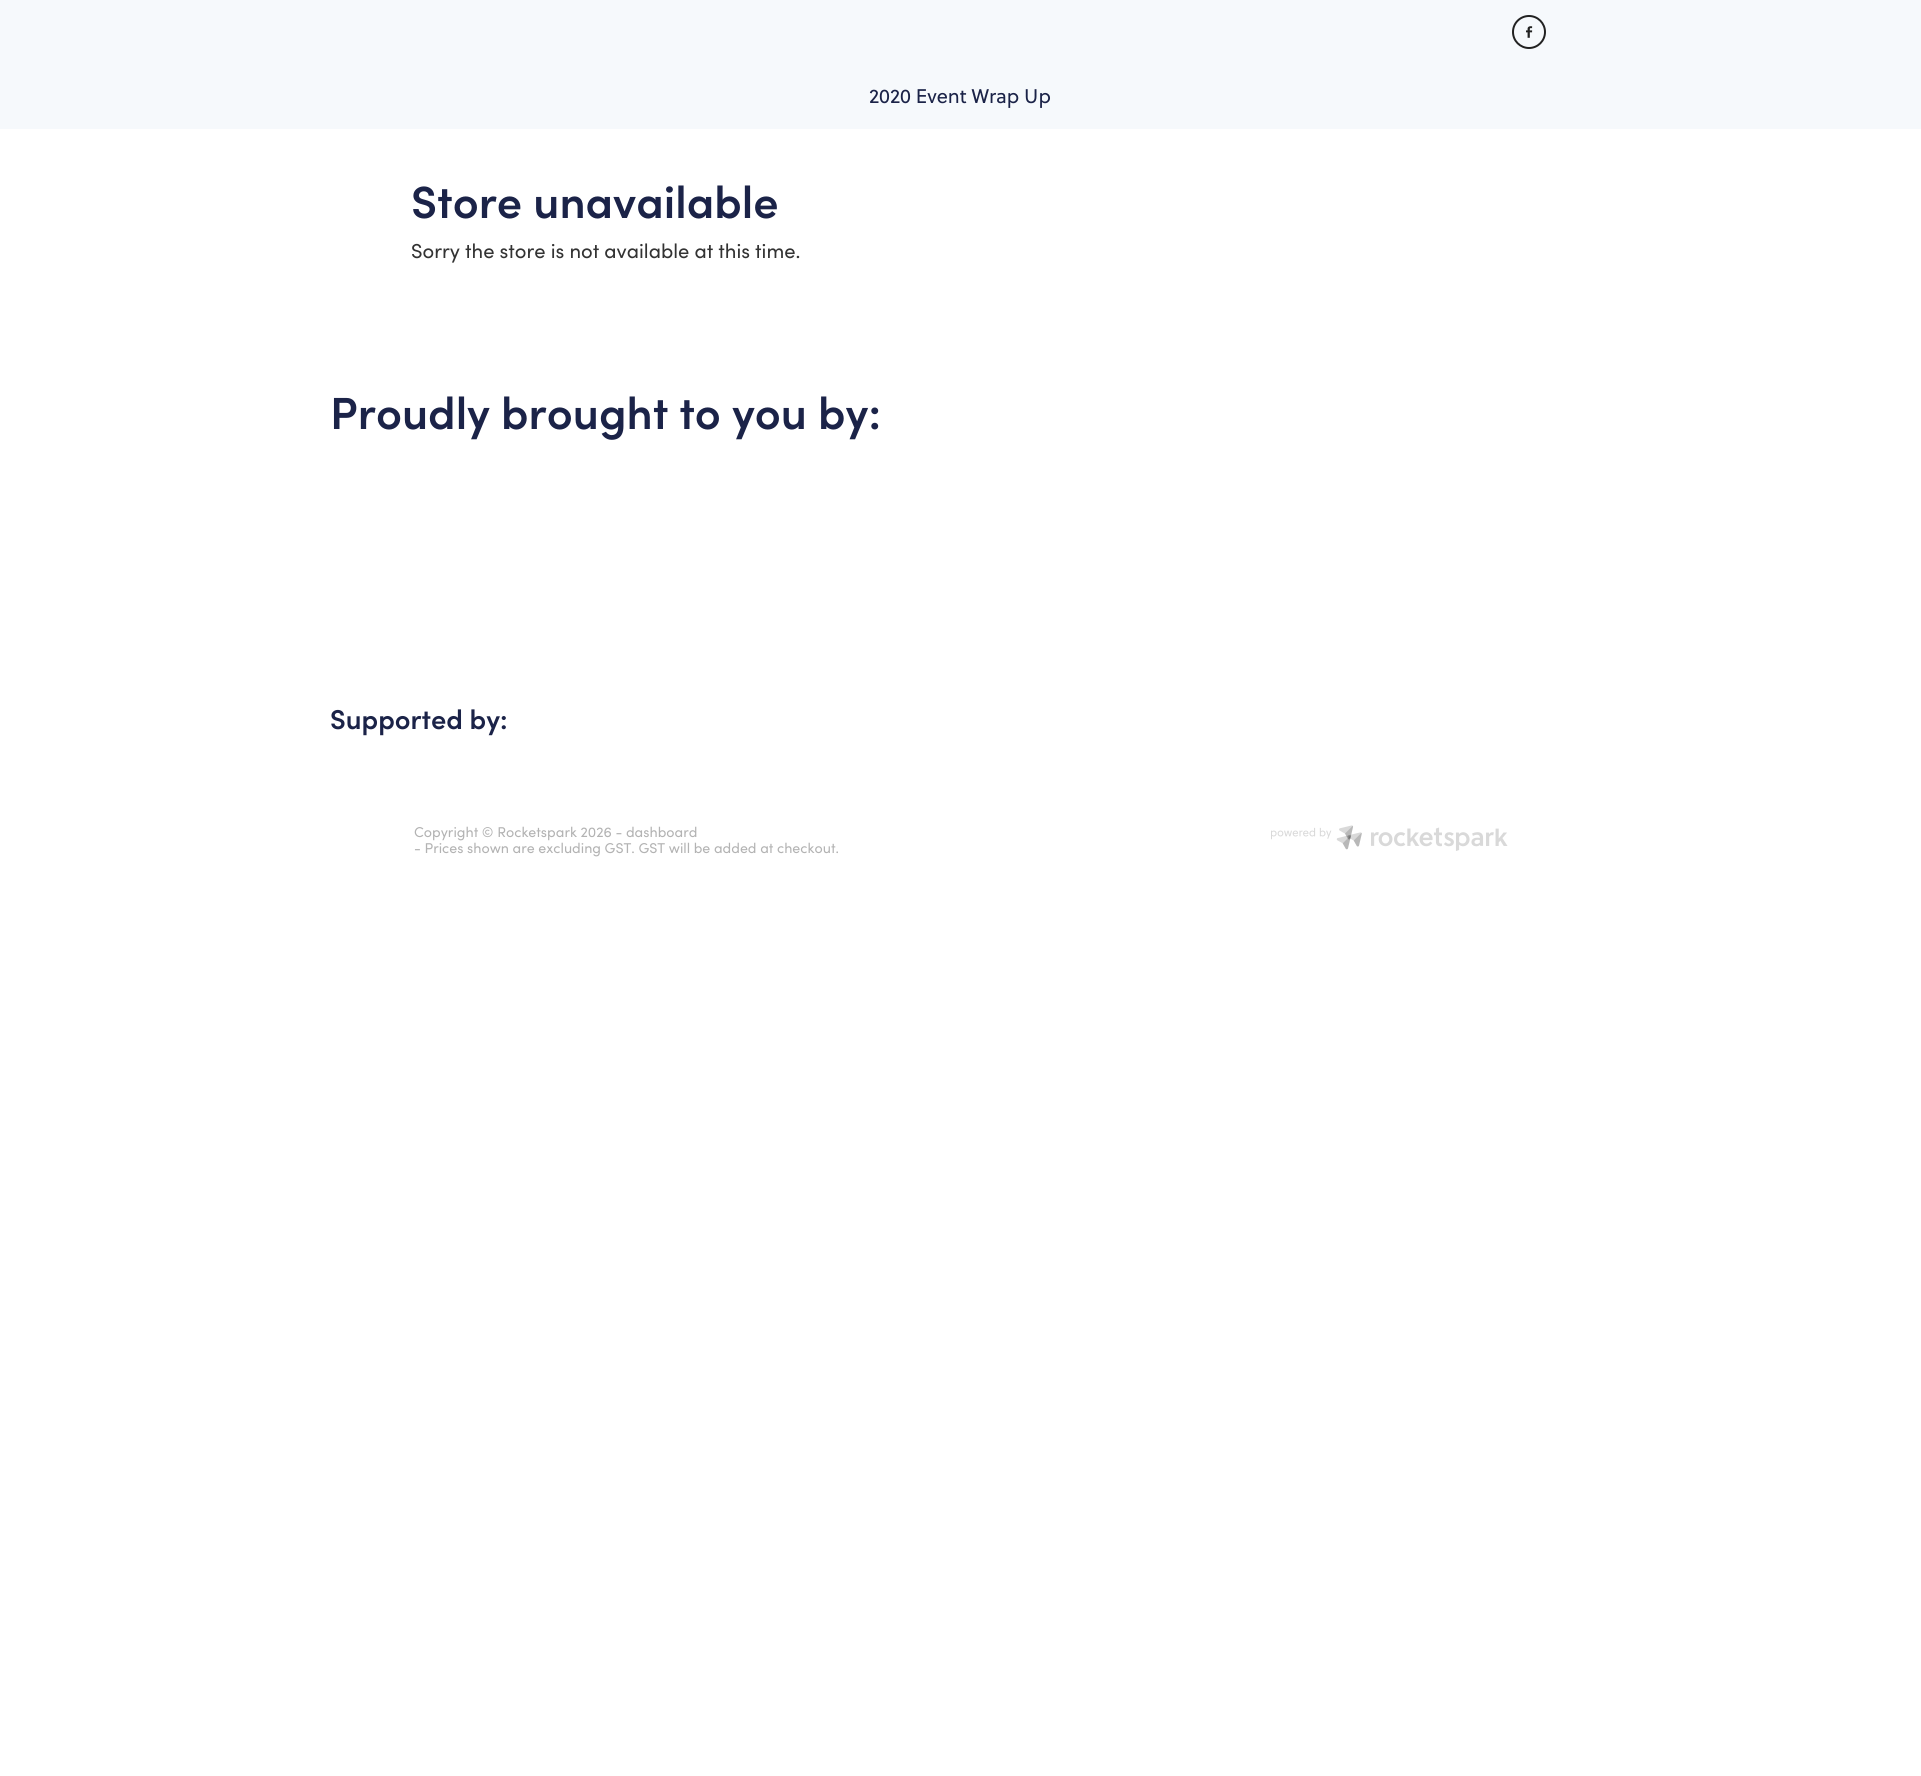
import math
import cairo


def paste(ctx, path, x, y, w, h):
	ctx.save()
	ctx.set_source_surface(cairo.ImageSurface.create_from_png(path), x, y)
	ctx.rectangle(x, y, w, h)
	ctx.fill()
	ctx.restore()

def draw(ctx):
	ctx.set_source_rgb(1, 1, 1)
	ctx.paint()
	ctx.set_source_rgb(0.961, 0.976, 0.988)
	ctx.rectangle(0, 0, 1921, 129)
	ctx.fill()
	ctx.arc(1529, 32, 16, 0, 2 * math.pi)
	ctx.set_source_rgb(0.133, 0.133, 0.133)
	ctx.stroke()
	paste(ctx, 'media/1.png', 1526, 26, 7, 12)
	ctx.select_font_face('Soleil')
	ctx.set_font_size(19.75)
	ctx.set_source_rgb(0.106, 0.137, 0.282)
	ctx.move_to(869, 103)
	ctx.show_text('2020 Event Wrap Up')
	ctx.select_font_face('Sofia SemiBold')
	ctx.set_font_size(45.1)
	ctx.move_to(411, 218)
	ctx.show_text('Store unavailable')
	ctx.select_font_face('Sofia')
	ctx.set_font_size(20.2)
	ctx.set_source_rgb(0.2, 0.2, 0.2)
	ctx.move_to(411, 258)
	ctx.show_text('Sorry the store is not available at this time.')
	ctx.select_font_face('Sofia SemiBold')
	ctx.set_font_size(45.1)
	ctx.set_source_rgb(0.106, 0.137, 0.282)
	ctx.move_to(330, 429)
	ctx.show_text('Proudly brought to you by:')
	ctx.set_font_size(27.25)
	ctx.move_to(330, 729)
	ctx.show_text('Supported by:')
	ctx.select_font_face('Sofia')
	ctx.set_font_size(14.25)
	ctx.set_source_rgb(0.702, 0.702, 0.702)
	ctx.move_to(414, 837)
	ctx.show_text('Copyright © Rocketspark 2026 - dashboard')
	ctx.move_to(414, 853)
	ctx.show_text('- Prices shown are excluding GST. GST will be added at checkout.')
	paste(ctx, 'media/2.png', 1271, 825, 237, 26)


surface = cairo.ImageSurface(cairo.FORMAT_RGB24, 1921, 1776)
ctx = cairo.Context(surface)
options = cairo.FontOptions()
options.set_hint_metrics(cairo.HINT_METRICS_OFF)
options.set_hint_style(cairo.HINT_STYLE_NONE)
ctx.set_font_options(options)
ctx.set_miter_limit(4)
draw(ctx)
surface.write_to_png('image.png')
